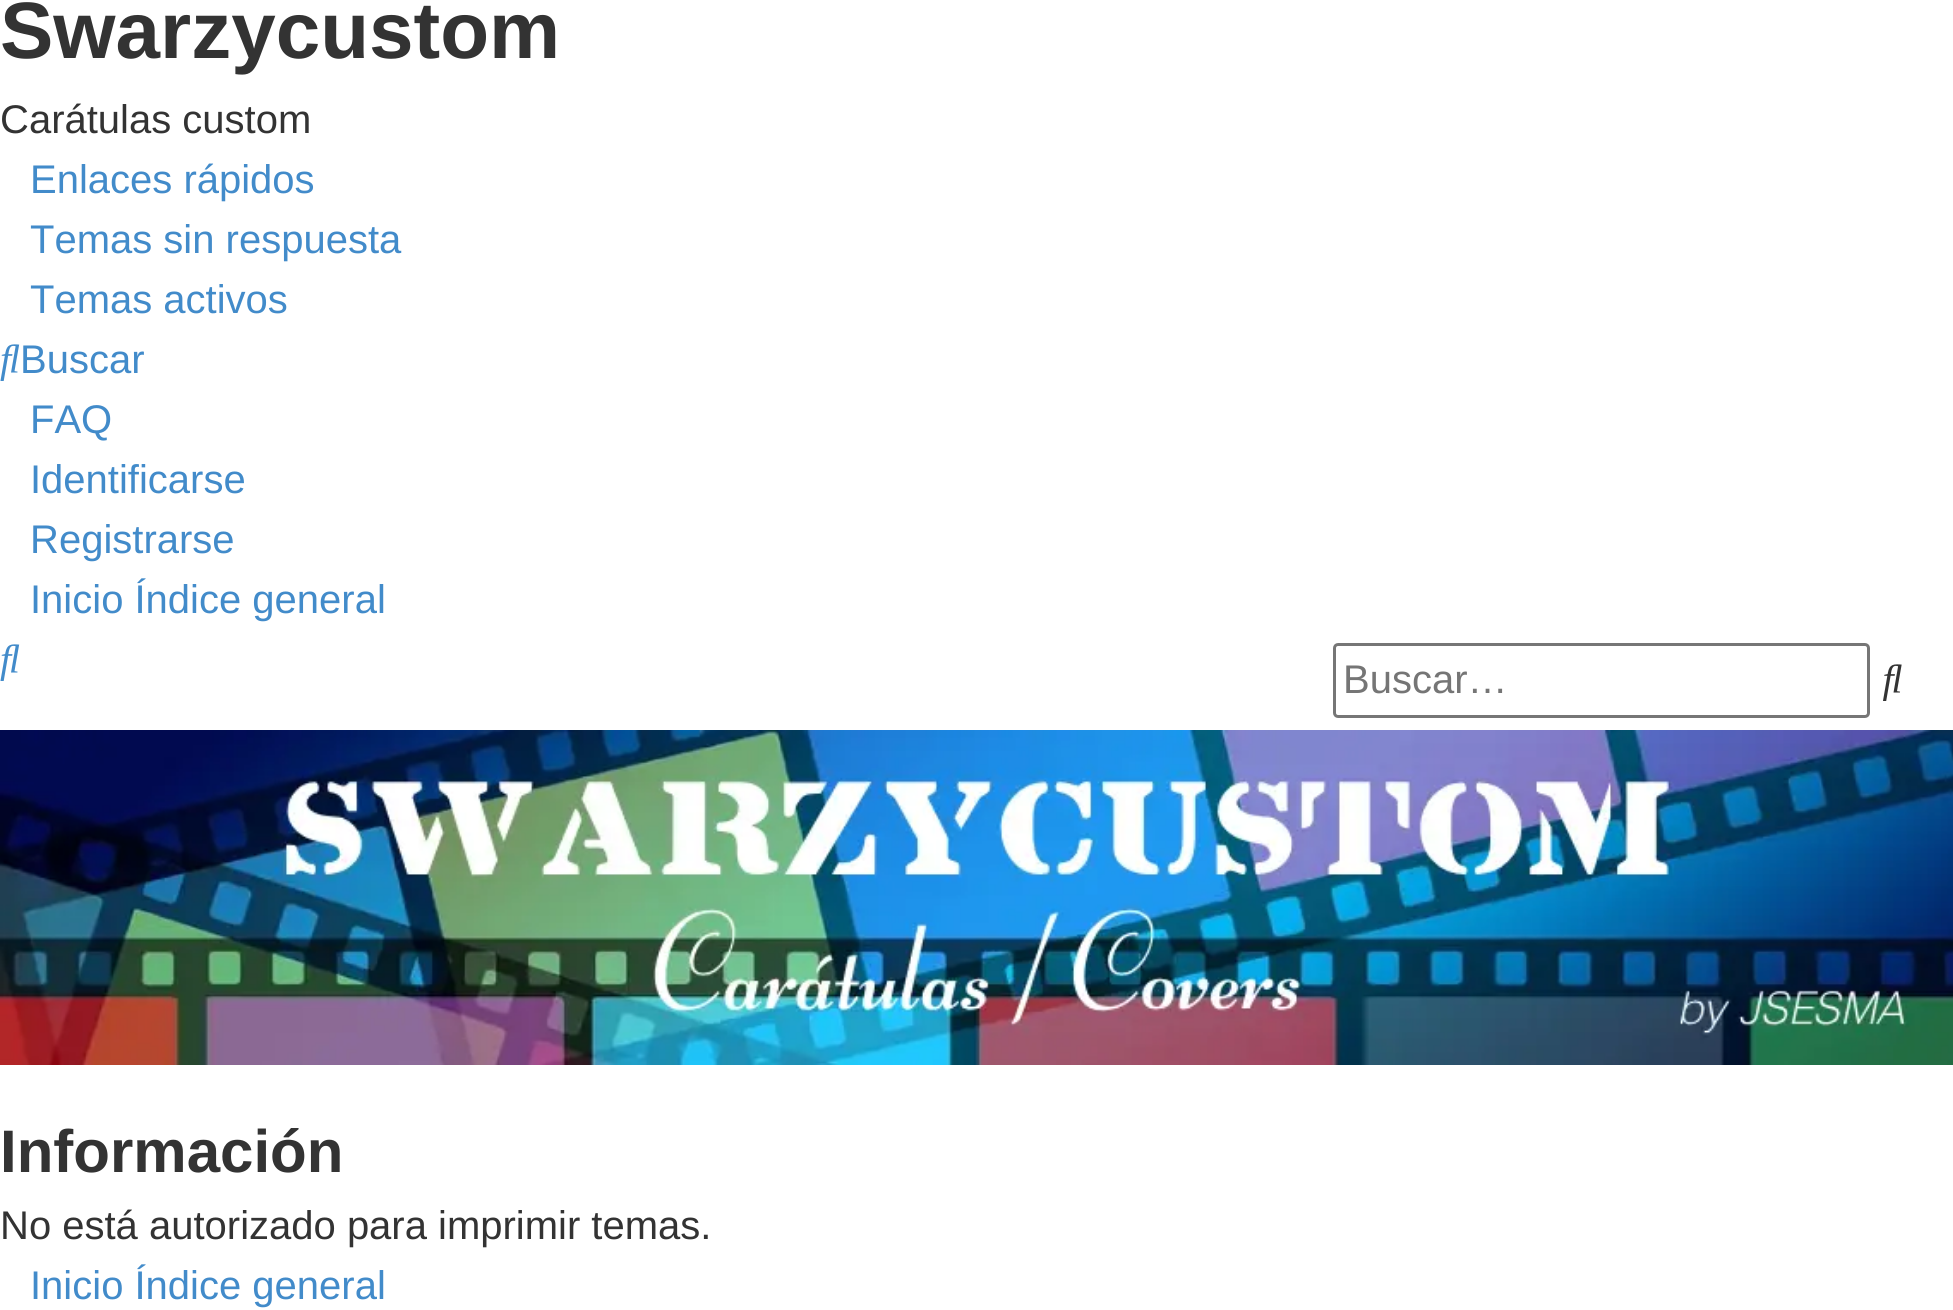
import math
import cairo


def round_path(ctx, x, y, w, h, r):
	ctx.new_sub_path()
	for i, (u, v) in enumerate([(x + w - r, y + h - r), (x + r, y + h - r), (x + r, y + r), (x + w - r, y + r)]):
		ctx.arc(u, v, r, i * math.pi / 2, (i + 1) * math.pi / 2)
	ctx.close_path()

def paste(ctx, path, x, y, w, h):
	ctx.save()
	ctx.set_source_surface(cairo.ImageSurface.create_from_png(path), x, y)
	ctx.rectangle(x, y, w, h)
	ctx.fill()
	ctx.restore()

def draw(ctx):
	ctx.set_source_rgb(1, 1, 1)
	ctx.paint()
	ctx.select_font_face('Liberation Sans', cairo.FONT_SLANT_NORMAL, cairo.FONT_WEIGHT_BOLD)
	ctx.set_font_size(80)
	ctx.set_source_rgb(0.2, 0.2, 0.2)
	ctx.move_to(0, 58)
	ctx.show_text('Swarzycustom')
	ctx.select_font_face('Liberation Sans')
	ctx.set_font_size(40)
	ctx.move_to(0, 133)
	ctx.show_text('Carátulas custom')
	ctx.set_source_rgb(0.259, 0.545, 0.792)
	for x, y, s in [
		(30, 193, 'Enlaces rápidos'),
		(30, 253, 'Temas sin respuesta'),
		(30, 313, 'Temas activos'),
	]:
		ctx.move_to(x, y)
		ctx.show_text(s)
	paste(ctx, 'media/1.png', 0, 344, 20, 37)
	for x, y, s in [
		(20, 373, 'Buscar'),
		(30, 433, 'FAQ'),
		(30, 493, 'Identificarse'),
		(30, 553, 'Registrarse'),
		(30, 613, 'Inicio Índice general'),
	]:
		ctx.move_to(x, y)
		ctx.show_text(s)
	paste(ctx, 'media/1.png', 0, 644, 20, 37)
	round_path(ctx, 1334.5, 644.5, 534, 72, 3.5)
	ctx.set_source_rgb(0.463, 0.463, 0.463)
	ctx.set_line_width(3)
	ctx.stroke()
	ctx.set_source_rgb(0.459, 0.459, 0.459)
	ctx.move_to(1343, 693)
	ctx.show_text('Buscar…')
	paste(ctx, 'media/2.png', 1883, 664, 19, 37)
	paste(ctx, 'media/3.png', 0, 730, 1953, 335)
	ctx.select_font_face('Liberation Sans', cairo.FONT_SLANT_NORMAL, cairo.FONT_WEIGHT_BOLD)
	ctx.set_font_size(60)
	ctx.set_source_rgb(0.2, 0.2, 0.2)
	ctx.move_to(0, 1172)
	ctx.show_text('Información')
	ctx.select_font_face('Liberation Sans')
	ctx.set_font_size(40)
	ctx.move_to(0, 1239)
	ctx.show_text('No está autorizado para imprimir temas.')
	ctx.set_source_rgb(0.259, 0.545, 0.792)
	ctx.move_to(30, 1299)
	ctx.show_text('Inicio Índice general')


surface = cairo.ImageSurface(cairo.FORMAT_RGB24, 1953, 1310)
ctx = cairo.Context(surface)
options = cairo.FontOptions()
options.set_hint_metrics(cairo.HINT_METRICS_OFF)
options.set_hint_style(cairo.HINT_STYLE_NONE)
ctx.set_font_options(options)
ctx.set_miter_limit(4)
draw(ctx)
surface.write_to_png('image.png')
